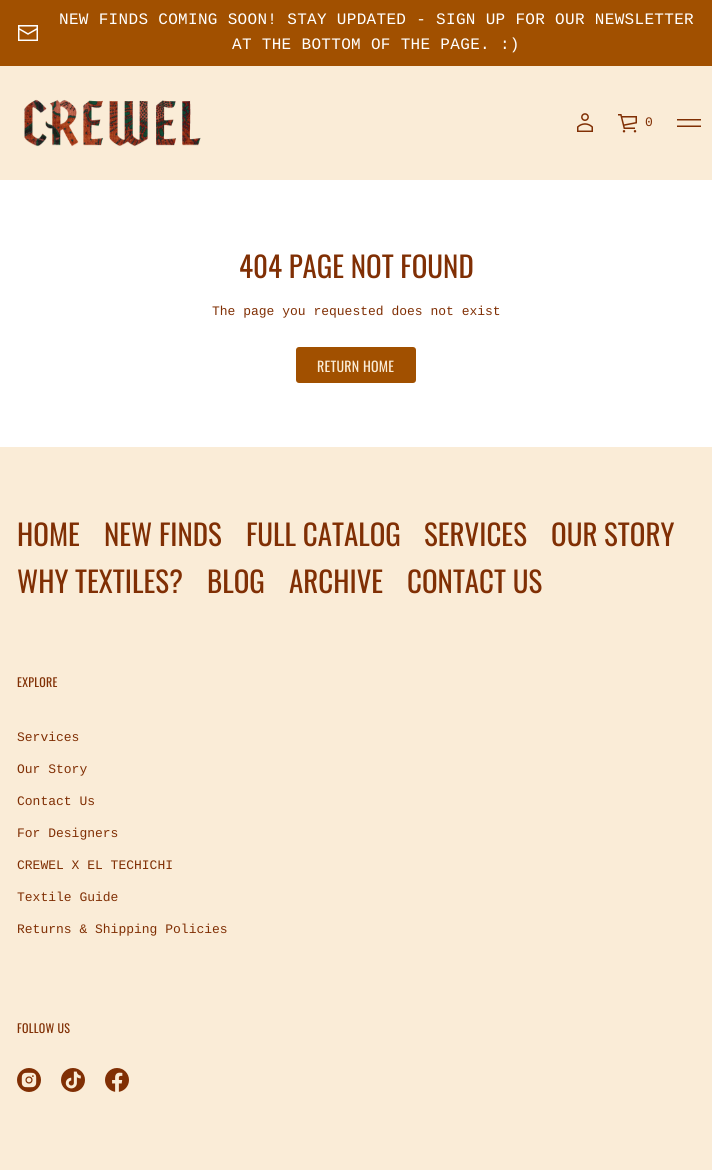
import math
import cairo


def write_spaced(ctx, x, y, s, letter, word):
	ctx.move_to(x, y)
	for ch in s:
		ctx.show_text(ch)
		ctx.rel_move_to(letter + word * (ch == ' '), 0)

def round_path(ctx, x, y, w, h, r):
	ctx.new_sub_path()
	for i, (u, v) in enumerate([(x + w - r, y + h - r), (x + r, y + h - r), (x + r, y + r), (x + w - r, y + r)]):
		ctx.arc(u, v, r, i * math.pi / 2, (i + 1) * math.pi / 2)
	ctx.close_path()

def paste(ctx, path, x, y, w, h):
	ctx.save()
	ctx.set_source_surface(cairo.ImageSurface.create_from_png(path), x, y)
	ctx.rectangle(x, y, w, h)
	ctx.fill()
	ctx.restore()

def draw(ctx):
	ctx.set_source_rgb(1, 1, 1)
	ctx.paint()
	ctx.set_source_rgb(0.631, 0.314, 0)
	ctx.rectangle(0, 0, 712, 66)
	ctx.fill()
	paste(ctx, 'media/1.png', 18, 25, 20, 16)
	ctx.select_font_face('Liberation Mono')
	ctx.set_font_size(16)
	ctx.set_source_rgb(1, 1, 1)
	write_spaced(ctx, 59, 24, 'NEW FINDS COMING SOON! STAY UPDATED - SIGN UP FOR OUR NEWSLETTER', 0.32, 0)
	write_spaced(ctx, 232, 49, 'AT THE BOTTOM OF THE PAGE. :)', 0.32, 0)
	ctx.set_source_rgb(0.98, 0.925, 0.843)
	ctx.rectangle(0, 66, 712, 114)
	ctx.fill()
	paste(ctx, 'media/2.png', 24, 99, 177, 48)
	paste(ctx, 'media/3.png', 577, 113, 16, 19)
	paste(ctx, 'media/4.png', 618, 114, 19, 19)
	ctx.set_font_size(13)
	ctx.set_source_rgb(0.502, 0.184, 0.016)
	ctx.move_to(645, 126)
	ctx.show_text('0')
	ctx.new_path()
	ctx.move_to(677, 119)
	ctx.line_to(677, 120.5)
	ctx.line_to(701, 120.5)
	ctx.line_to(701, 119)
	ctx.close_path()
	ctx.move_to(677, 127)
	ctx.line_to(701, 127)
	ctx.line_to(701, 125.5)
	ctx.line_to(677, 125.5)
	ctx.close_path()
	ctx.fill()
	ctx.select_font_face('Oswald')
	ctx.set_font_size(29)
	ctx.move_to(239, 278)
	ctx.show_text('404 PAGE NOT FOUND')
	ctx.select_font_face('Liberation Mono')
	ctx.set_font_size(13)
	ctx.move_to(212, 315)
	ctx.show_text('The page you requested does not exist')
	ctx.set_source_rgb(0.631, 0.314, 0)
	round_path(ctx, 296, 347, 120, 36, 3)
	ctx.fill()
	ctx.select_font_face('Oswald')
	ctx.set_font_size(14)
	ctx.set_source_rgb(0.98, 0.925, 0.843)
	write_spaced(ctx, 317, 372, 'RETURN HOME', 0.25, 0)
	ctx.rectangle(0, 447, 712, 723)
	ctx.fill()
	ctx.set_font_size(29)
	ctx.set_source_rgb(0.502, 0.184, 0.016)
	for x, y, s in [
		(17, 546, 'HOME'),
		(104, 546, 'NEW FINDS'),
		(246, 546, 'FULL CATALOG'),
		(424, 546, 'SERVICES'),
		(551, 546, 'OUR STORY'),
		(17, 593, 'WHY TEXTILES?'),
		(207, 593, 'BLOG'),
		(289, 593, 'ARCHIVE'),
		(407, 593, 'CONTACT US'),
	]:
		ctx.move_to(x, y)
		ctx.show_text(s)
	ctx.set_font_size(12)
	write_spaced(ctx, 17, 687, 'EXPLORE', 0.25, 0)
	ctx.select_font_face('Liberation Mono')
	ctx.set_font_size(13)
	for x, y, s in [
		(17, 741, 'Services'),
		(17, 773, 'Our Story'),
		(17, 805, 'Contact Us'),
		(17, 837, 'For Designers'),
		(17, 869, 'CREWEL X EL TECHICHI'),
		(17, 901, 'Textile Guide'),
		(17, 933, 'Returns & Shipping Policies'),
	]:
		ctx.move_to(x, y)
		ctx.show_text(s)
	ctx.select_font_face('Oswald')
	ctx.set_font_size(12)
	write_spaced(ctx, 17, 1033, 'FOLLOW US', 0.25, 0)
	paste(ctx, 'media/5.png', 17, 1068, 24, 24)
	paste(ctx, 'media/6.png', 61, 1068, 24, 24)
	paste(ctx, 'media/7.png', 105, 1068, 24, 24)


surface = cairo.ImageSurface(cairo.FORMAT_RGB24, 712, 1170)
ctx = cairo.Context(surface)
options = cairo.FontOptions()
options.set_hint_metrics(cairo.HINT_METRICS_OFF)
options.set_hint_style(cairo.HINT_STYLE_NONE)
ctx.set_font_options(options)
ctx.set_miter_limit(4)
draw(ctx)
surface.write_to_png('image.png')
